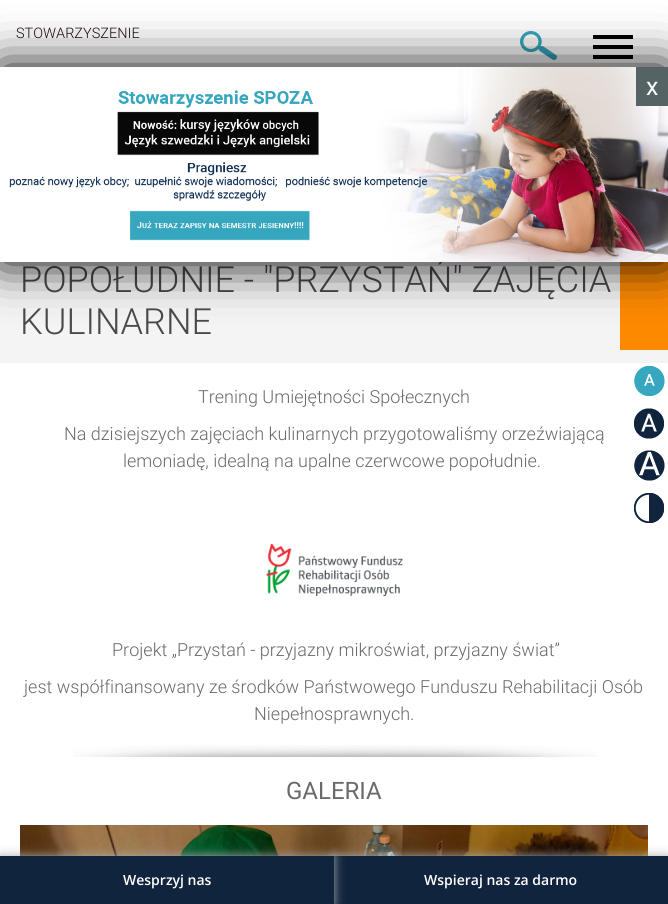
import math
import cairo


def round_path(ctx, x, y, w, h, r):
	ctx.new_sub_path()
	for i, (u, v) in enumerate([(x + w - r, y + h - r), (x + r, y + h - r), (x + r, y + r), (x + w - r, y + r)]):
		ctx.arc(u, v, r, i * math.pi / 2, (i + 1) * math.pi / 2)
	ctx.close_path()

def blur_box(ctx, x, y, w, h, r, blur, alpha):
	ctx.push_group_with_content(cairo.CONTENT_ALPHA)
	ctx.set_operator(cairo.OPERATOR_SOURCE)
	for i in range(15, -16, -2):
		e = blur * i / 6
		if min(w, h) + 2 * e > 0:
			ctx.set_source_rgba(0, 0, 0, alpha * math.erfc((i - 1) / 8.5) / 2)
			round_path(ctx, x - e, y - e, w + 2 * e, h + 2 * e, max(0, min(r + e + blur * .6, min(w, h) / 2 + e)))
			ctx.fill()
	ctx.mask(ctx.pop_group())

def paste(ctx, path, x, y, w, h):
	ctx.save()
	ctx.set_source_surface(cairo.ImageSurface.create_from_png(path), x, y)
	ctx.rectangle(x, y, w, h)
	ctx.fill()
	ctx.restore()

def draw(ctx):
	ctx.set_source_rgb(1, 1, 1)
	ctx.paint()
	ctx.select_font_face('Roboto Light')
	ctx.set_font_size(14.5)
	ctx.set_source_rgb(0.118, 0.055, 0.055)
	ctx.move_to(16, 38)
	ctx.show_text('STOWARZYSZENIE')
	paste(ctx, 'media/1.png', 520, 31, 37, 29)
	ctx.set_source_rgb(0, 0, 0)
	ctx.rectangle(593, 45, 40, 4)
	ctx.rectangle(593, 35, 40, 4)
	ctx.rectangle(593, 55, 40, 4)
	ctx.fill()
	ctx.set_source_rgb(0.957, 0.957, 0.957)
	ctx.rectangle(0, 262, 648, 101)
	ctx.fill()
	ctx.set_font_size(36)
	ctx.set_source_rgb(0.29, 0.29, 0.29)
	ctx.move_to(20, 292)
	ctx.show_text('POPOŁUDNIE - "PRZYSTAŃ" ZAJĘCIA')
	ctx.move_to(20, 334)
	ctx.show_text('KULINARNE')
	ctx.set_source_rgb(0.957, 0.957, 0.957)
	ctx.rectangle(648, 350, 20, 13)
	ctx.fill()
	ctx.set_font_size(18)
	ctx.set_source_rgb(0.416, 0.416, 0.416)
	for x, y, s in [
		(198, 403, 'Trening Umiejętności Społecznych'),
		(64, 440, 'Na dzisiejszych zajęciach kulinarnych przygotowaliśmy orzeźwiającą'),
		(123, 467, 'lemoniadę, idealną na upalne czerwcowe popołudnie.'),
	]:
		ctx.move_to(x, y)
		ctx.show_text(s)
	paste(ctx, 'media/2.png', 266, 543, 138, 54)
	for x, y, s in [
		(112, 656, 'Projekt „Przystań - przyjazny mikroświat, przyjazny świat”'),
		(24, 693, 'jest współfinansowany ze środków Państwowego Funduszu Rehabilitacji Osób'),
		(254, 720, 'Niepełnosprawnych.'),
	]:
		ctx.move_to(x, y)
		ctx.show_text(s)
	paste(ctx, 'media/3.png', 73, 745, 524, 12)
	ctx.select_font_face('Roboto')
	ctx.set_font_size(24)
	ctx.move_to(286, 799)
	ctx.show_text('GALERIA')
	paste(ctx, 'media/4.png', 20, 825, 628, 31)
	ctx.set_source_rgb(0.992, 0.537, 0)
	ctx.rectangle(620, 262, 48, 88)
	ctx.fill()
	ctx.set_source_rgb(0, 0, 0)
	blur_box(ctx, 0, 67, 668, 195, 0, 25, 1)
	ctx.set_source_rgb(1, 1, 1)
	ctx.rectangle(0, 67, 9, 195)
	ctx.fill()
	paste(ctx, 'media/5.png', 9, 67, 659, 195)
	ctx.set_source_rgb(0.333, 0.388, 0.396)
	ctx.rectangle(636, 67, 32, 39)
	ctx.fill()
	ctx.set_font_size(25)
	ctx.set_source_rgb(1, 1, 1)
	ctx.move_to(646, 95)
	ctx.show_text('x')
	paste(ctx, 'media/6.png', 634, 366, 31, 30)
	paste(ctx, 'media/7.png', 634, 408, 30, 31)
	paste(ctx, 'media/8.png', 634, 450, 31, 31)
	paste(ctx, 'media/9.png', 634, 493, 30, 30)
	ctx.set_source_rgb(0.667, 0.667, 0.667)
	blur_box(ctx, 334, 856, 334, 48, 0, 5, 1)
	ctx.set_source_rgb(0.063, 0.141, 0.239)
	ctx.rectangle(334, 856, 334, 48)
	ctx.fill()
	ctx.set_source_rgb(0.667, 0.667, 0.667)
	blur_box(ctx, 0, 856, 334, 48, 0, 5, 1)
	ctx.set_source_rgb(0.063, 0.141, 0.239)
	ctx.rectangle(0, 856, 334, 48)
	ctx.fill()
	ctx.select_font_face('Open Sans SemiBold')
	ctx.set_font_size(14)
	ctx.set_source_rgb(1, 1, 1)
	ctx.move_to(123, 885)
	ctx.show_text('Wesprzyj nas')
	ctx.move_to(424, 885)
	ctx.show_text('Wspieraj nas za darmo')


surface = cairo.ImageSurface(cairo.FORMAT_RGB24, 668, 904)
ctx = cairo.Context(surface)
options = cairo.FontOptions()
options.set_hint_metrics(cairo.HINT_METRICS_OFF)
options.set_hint_style(cairo.HINT_STYLE_NONE)
ctx.set_font_options(options)
ctx.set_miter_limit(4)
draw(ctx)
surface.write_to_png('image.png')
